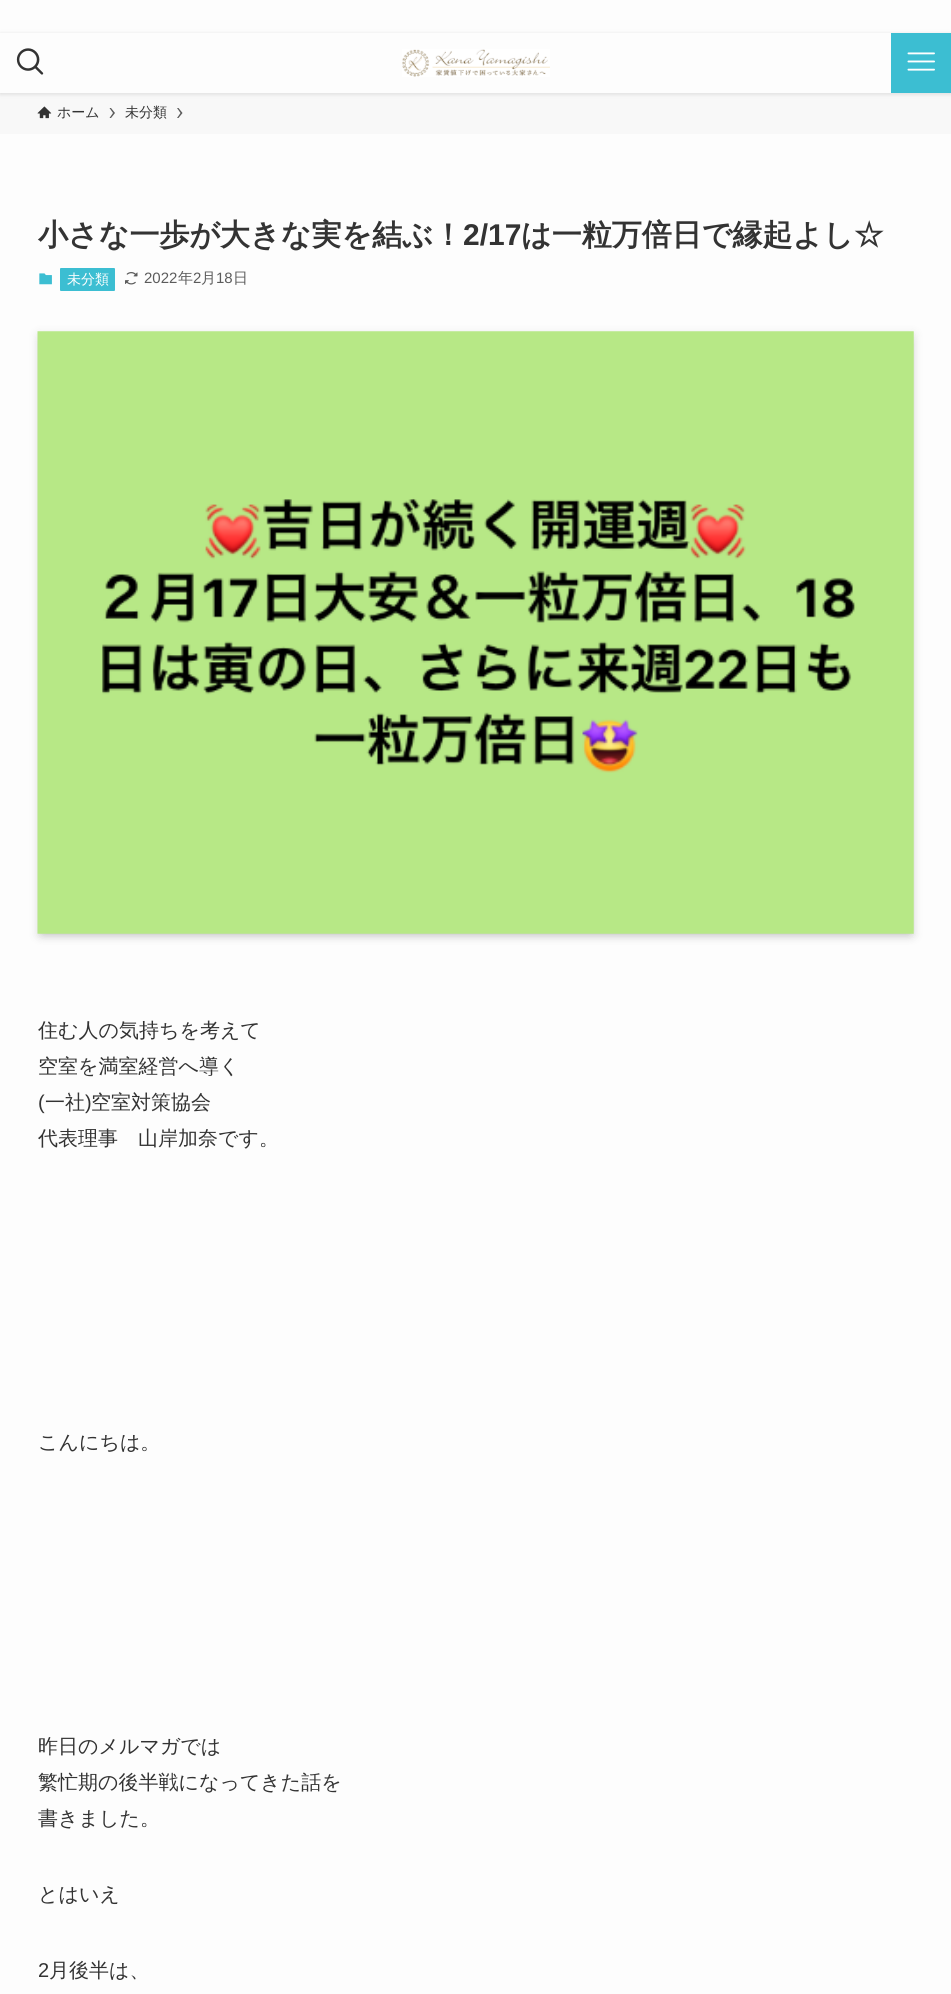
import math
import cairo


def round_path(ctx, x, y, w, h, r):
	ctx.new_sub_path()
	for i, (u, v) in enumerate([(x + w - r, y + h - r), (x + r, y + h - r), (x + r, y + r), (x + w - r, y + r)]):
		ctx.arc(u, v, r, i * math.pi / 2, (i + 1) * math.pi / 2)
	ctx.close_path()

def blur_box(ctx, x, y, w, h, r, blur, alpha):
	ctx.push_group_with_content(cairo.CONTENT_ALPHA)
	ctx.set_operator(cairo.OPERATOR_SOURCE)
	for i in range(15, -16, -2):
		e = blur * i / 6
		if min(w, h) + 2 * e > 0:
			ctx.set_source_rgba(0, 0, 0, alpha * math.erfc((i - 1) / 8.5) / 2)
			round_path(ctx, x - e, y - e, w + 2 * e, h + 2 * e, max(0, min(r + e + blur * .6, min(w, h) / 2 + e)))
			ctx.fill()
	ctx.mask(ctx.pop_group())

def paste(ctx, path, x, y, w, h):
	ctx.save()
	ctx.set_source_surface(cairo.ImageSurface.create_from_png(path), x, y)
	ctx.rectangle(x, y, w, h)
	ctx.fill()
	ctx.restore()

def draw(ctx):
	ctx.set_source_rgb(0.992, 0.992, 0.992)
	ctx.paint()
	ctx.set_source_rgb(0.969, 0.969, 0.969)
	ctx.rectangle(0, 93, 951, 41)
	ctx.fill()
	ctx.set_source_rgb(0, 0, 0)
	blur_box(ctx, 0, 34, 951, 60, 0, 2.5, 0.12)
	ctx.set_source_rgb(0.992, 0.992, 0.992)
	ctx.rectangle(0, 33, 891, 60)
	ctx.fill()
	paste(ctx, 'media/1.png', 16, 48, 28, 27)
	paste(ctx, 'media/2.png', 402, 49, 148, 28)
	ctx.set_source_rgb(0.235, 0.745, 0.824)
	ctx.rectangle(891, 33, 60, 60)
	ctx.fill()
	paste(ctx, 'media/3.png', 907, 52, 28, 19)
	paste(ctx, 'media/4.png', 37, 106, 15, 13)
	ctx.select_font_face('WenQuanYi Zen Hei Medium')
	ctx.set_font_size(14)
	ctx.set_source_rgb(0.2, 0.2, 0.2)
	ctx.move_to(57, 117)
	ctx.show_text('ホーム')
	ctx.set_source_rgb(0.353, 0.353, 0.353)
	ctx.new_path()
	ctx.move_to(111, 108)
	ctx.line_to(109.5, 108)
	ctx.line_to(113, 113)
	ctx.line_to(109.5, 118)
	ctx.line_to(111, 118)
	ctx.line_to(115, 113)
	ctx.close_path()
	ctx.fill()
	ctx.set_source_rgb(0.2, 0.2, 0.2)
	ctx.move_to(125, 117)
	ctx.show_text('未分類')
	ctx.set_source_rgb(0.353, 0.353, 0.353)
	ctx.new_path()
	ctx.move_to(178.5, 108)
	ctx.line_to(177, 108)
	ctx.line_to(180.5, 113)
	ctx.line_to(177, 118)
	ctx.line_to(178.5, 118)
	ctx.line_to(182.5, 113)
	ctx.close_path()
	ctx.fill()
	ctx.select_font_face('WenQuanYi Zen Hei', cairo.FONT_SLANT_NORMAL, cairo.FONT_WEIGHT_BOLD)
	ctx.set_font_size(30)
	ctx.set_source_rgb(0.2, 0.2, 0.2)
	ctx.move_to(38, 245)
	ctx.show_text('小さな一歩が大きな実を結ぶ！')
	ctx.select_font_face('Liberation Sans', cairo.FONT_SLANT_NORMAL, cairo.FONT_WEIGHT_BOLD)
	ctx.move_to(463, 245)
	ctx.show_text('2/17')
	ctx.select_font_face('WenQuanYi Zen Hei', cairo.FONT_SLANT_NORMAL, cairo.FONT_WEIGHT_BOLD)
	ctx.move_to(521, 245)
	ctx.show_text('は一粒万倍日で縁起よし☆')
	paste(ctx, 'media/5.png', 39, 273, 13, 12)
	ctx.set_source_rgb(0.235, 0.745, 0.824)
	round_path(ctx, 60, 268, 55, 23, 1)
	ctx.fill()
	ctx.select_font_face('WenQuanYi Zen Hei Medium')
	ctx.set_font_size(14)
	ctx.set_source_rgb(1, 1, 1)
	ctx.move_to(67, 284)
	ctx.show_text('未分類')
	paste(ctx, 'media/6.png', 125, 272, 13, 13)
	ctx.select_font_face('Liberation Sans')
	ctx.set_font_size(15)
	ctx.set_source_rgb(0.357, 0.357, 0.357)
	ctx.move_to(144, 283)
	ctx.show_text('2022')
	ctx.select_font_face('WenQuanYi Zen Hei Medium')
	ctx.move_to(178, 283)
	ctx.show_text('年')
	ctx.select_font_face('Liberation Sans')
	ctx.move_to(193, 283)
	ctx.show_text('2')
	ctx.select_font_face('WenQuanYi Zen Hei Medium')
	ctx.move_to(201, 283)
	ctx.show_text('月')
	ctx.select_font_face('Liberation Sans')
	ctx.move_to(216, 283)
	ctx.show_text('18')
	ctx.select_font_face('WenQuanYi Zen Hei Medium')
	ctx.move_to(233, 283)
	ctx.show_text('日')
	ctx.set_source_rgb(0, 0, 0)
	blur_box(ctx, 43, 341, 866, 593, 0, 5, 0.2)
	blur_box(ctx, 38, 334, 876, 602, 0, 5, 0.1)
	paste(ctx, 'media/7.png', 37, 331, 877, 603)
	ctx.set_font_size(20)
	ctx.set_source_rgb(0.2, 0.2, 0.2)
	ctx.move_to(38, 1037)
	ctx.show_text('住む人の気持ちを考えて')
	ctx.move_to(38, 1073)
	ctx.show_text('空室を満室経営へ導く')
	ctx.select_font_face('Liberation Sans')
	ctx.move_to(38, 1109)
	ctx.show_text('(')
	ctx.select_font_face('WenQuanYi Zen Hei Medium')
	ctx.move_to(45, 1109)
	ctx.show_text('一社')
	ctx.select_font_face('Liberation Sans')
	ctx.move_to(85, 1109)
	ctx.show_text(')')
	ctx.select_font_face('WenQuanYi Zen Hei Medium')
	for x, y, s in [
		(91, 1109, '空室対策協会'),
		(38, 1145, '代表理事　山岸加奈です。'),
		(38, 1449, 'こんにちは。'),
		(38, 1753, '昨日のメルマガでは'),
		(38, 1789, '繁忙期の後半戦になってきた話を'),
		(38, 1825, '書きました。'),
		(38, 1901, 'とはいえ'),
	]:
		ctx.move_to(x, y)
		ctx.show_text(s)
	ctx.select_font_face('Liberation Sans')
	ctx.move_to(38, 1977)
	ctx.show_text('2')
	ctx.select_font_face('WenQuanYi Zen Hei Medium')
	ctx.move_to(49, 1977)
	ctx.show_text('月後半は、')


surface = cairo.ImageSurface(cairo.FORMAT_RGB24, 951, 1994)
ctx = cairo.Context(surface)
options = cairo.FontOptions()
options.set_hint_metrics(cairo.HINT_METRICS_OFF)
options.set_hint_style(cairo.HINT_STYLE_NONE)
ctx.set_font_options(options)
ctx.set_miter_limit(4)
draw(ctx)
surface.write_to_png('image.png')
